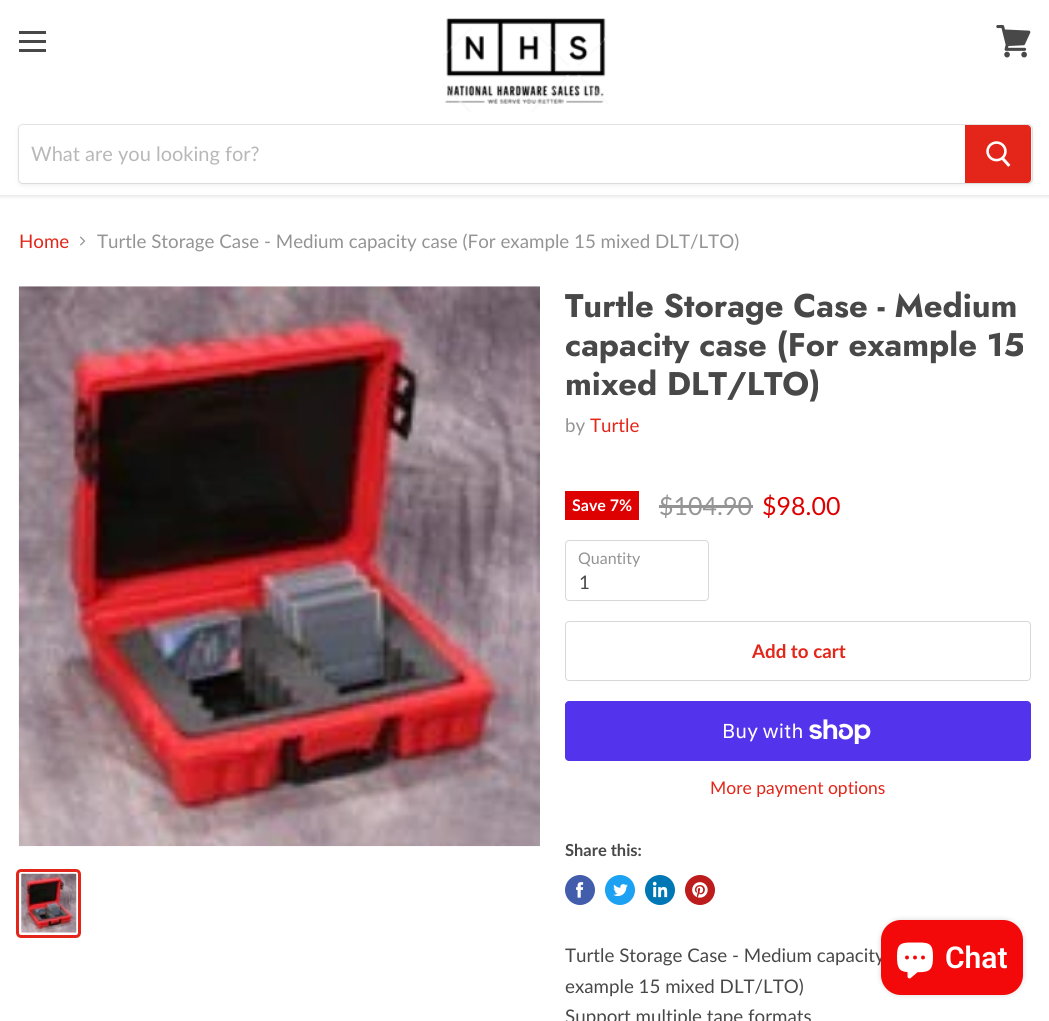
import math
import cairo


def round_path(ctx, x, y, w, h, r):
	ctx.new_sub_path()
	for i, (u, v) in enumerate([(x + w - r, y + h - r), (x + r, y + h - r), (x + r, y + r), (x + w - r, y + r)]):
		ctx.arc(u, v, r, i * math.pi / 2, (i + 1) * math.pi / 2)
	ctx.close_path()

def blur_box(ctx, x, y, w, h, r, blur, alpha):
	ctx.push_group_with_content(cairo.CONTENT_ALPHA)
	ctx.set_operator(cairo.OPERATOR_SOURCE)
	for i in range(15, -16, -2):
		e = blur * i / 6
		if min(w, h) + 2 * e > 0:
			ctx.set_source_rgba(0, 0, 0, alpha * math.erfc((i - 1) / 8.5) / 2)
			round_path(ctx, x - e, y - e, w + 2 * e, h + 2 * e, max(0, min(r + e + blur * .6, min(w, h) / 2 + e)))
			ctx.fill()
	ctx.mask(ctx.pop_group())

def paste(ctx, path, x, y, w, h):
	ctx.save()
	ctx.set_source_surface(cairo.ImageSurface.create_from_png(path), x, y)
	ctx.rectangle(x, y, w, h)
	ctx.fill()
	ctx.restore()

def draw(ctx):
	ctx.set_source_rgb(1, 1, 1)
	ctx.paint()
	ctx.save()
	ctx.rectangle(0, 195, 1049, 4)
	ctx.clip()
	ctx.set_source_rgb(0.498, 0.498, 0.498)
	blur_box(ctx, 0, 1, 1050, 195, 0, 2.5, 0.25)
	ctx.restore()
	ctx.set_source_rgb(0.282, 0.282, 0.282)
	ctx.rectangle(19, 31, 27, 3)
	ctx.rectangle(19, 40, 27, 3)
	ctx.rectangle(19, 49, 27, 3)
	ctx.fill()
	paste(ctx, 'media/1.png', 996, 25, 35, 33)
	paste(ctx, 'media/2.png', 443, 18, 166, 94)
	ctx.set_source_rgb(0.498, 0.498, 0.498)
	blur_box(ctx, 18, 126, 1015, 60, 5, 2, 0.11)
	round_path(ctx, 18.5, 124.5, 1014, 59, 4.5)
	ctx.set_source_rgba(0.498, 0.498, 0.498, 0.2)
	ctx.set_line_width(1)
	ctx.stroke()
	ctx.set_source_rgb(1, 1, 1)
	ctx.new_path()
	ctx.move_to(23, 125)
	ctx.line_to(965, 125)
	ctx.line_to(965, 183)
	ctx.line_to(23, 183)
	ctx.curve_to(21, 183, 19, 181, 19, 179)
	ctx.line_to(19, 129)
	ctx.curve_to(19, 127, 21, 125, 23, 125)
	ctx.close_path()
	ctx.fill()
	ctx.select_font_face('Lato')
	ctx.set_font_size(20)
	ctx.set_source_rgb(0.722, 0.722, 0.722)
	ctx.move_to(31, 161)
	ctx.show_text('What are you looking for?')
	ctx.set_source_rgb(0.89, 0.149, 0.098)
	ctx.new_path()
	ctx.move_to(965.5, 125.5)
	ctx.line_to(1027, 125.5)
	ctx.curve_to(1029, 125.5, 1030.5, 127, 1030.5, 129)
	ctx.line_to(1030.5, 179)
	ctx.curve_to(1030.5, 181, 1029, 182.5, 1027, 182.5)
	ctx.line_to(965.5, 182.5)
	ctx.close_path()
	ctx.fill_preserve()
	ctx.stroke()
	paste(ctx, 'media/3.png', 986, 141, 25, 26)
	ctx.set_font_size(18.75)
	ctx.move_to(19, 248)
	ctx.show_text('Home')
	paste(ctx, 'media/4.png', 80, 236, 6, 10)
	ctx.set_source_rgb(0.58, 0.58, 0.58)
	ctx.move_to(97, 248)
	ctx.show_text('Turtle Storage Case - Medium capacity case (For example 15 mixed DLT/LTO)')
	paste(ctx, 'media/5.png', 18, 286, 522, 561)
	round_path(ctx, 17.5, 870.5, 62, 66, 3.5)
	ctx.set_source_rgb(0.89, 0.149, 0.098)
	ctx.set_line_width(3)
	ctx.stroke()
	paste(ctx, 'media/6.png', 21, 873, 56, 60)
	ctx.select_font_face('Jost', cairo.FONT_SLANT_NORMAL, cairo.FONT_WEIGHT_BOLD)
	ctx.set_font_size(32.75)
	ctx.set_source_rgb(0.282, 0.282, 0.282)
	for x, y, s in [
		(565, 317, 'Turtle Storage Case - Medium'),
		(565, 356, 'capacity case (For example 15'),
		(565, 395, 'mixed DLT/LTO)'),
	]:
		ctx.move_to(x, y)
		ctx.show_text(s)
	ctx.select_font_face('Lato')
	ctx.set_font_size(18.75)
	ctx.set_source_rgb(0.58, 0.58, 0.58)
	ctx.move_to(565, 432)
	ctx.show_text('by')
	ctx.set_source_rgb(0.89, 0.149, 0.098)
	ctx.move_to(590, 432)
	ctx.show_text('Turtle')
	ctx.set_source_rgb(0.871, 0.004, 0.004)
	ctx.rectangle(565, 491, 74, 29)
	ctx.fill()
	ctx.select_font_face('Lato', cairo.FONT_SLANT_NORMAL, cairo.FONT_WEIGHT_BOLD)
	ctx.set_font_size(16)
	ctx.set_source_rgb(1, 1, 1)
	ctx.move_to(572, 511)
	ctx.show_text('Save 7%')
	ctx.select_font_face('Lato')
	ctx.set_font_size(25)
	ctx.set_source_rgb(0.58, 0.58, 0.58)
	ctx.move_to(659, 515)
	ctx.show_text('$104.90')
	ctx.rectangle(659, 505, 94, 3)
	ctx.fill()
	ctx.set_source_rgb(0.871, 0.004, 0.004)
	ctx.move_to(762, 515)
	ctx.show_text('$98.00')
	round_path(ctx, 565.5, 540.5, 143, 60, 3.5)
	ctx.set_source_rgb(0.847, 0.847, 0.847)
	ctx.set_line_width(1)
	ctx.stroke()
	ctx.set_font_size(16)
	ctx.set_source_rgb(0.58, 0.58, 0.58)
	ctx.move_to(578, 564)
	ctx.show_text('Quantity')
	ctx.set_font_size(18.75)
	ctx.set_source_rgb(0.282, 0.282, 0.282)
	ctx.move_to(579, 589)
	ctx.show_text('1')
	round_path(ctx, 565.5, 621.5, 465, 59, 3.5)
	ctx.set_source_rgb(0.847, 0.847, 0.847)
	ctx.stroke()
	ctx.select_font_face('Lato', cairo.FONT_SLANT_NORMAL, cairo.FONT_WEIGHT_BOLD)
	ctx.set_source_rgb(0.89, 0.149, 0.098)
	ctx.move_to(752, 658)
	ctx.show_text('Add to cart')
	ctx.set_source_rgb(0.329, 0.2, 0.922)
	round_path(ctx, 565, 701, 466, 60, 4)
	ctx.fill()
	ctx.select_font_face('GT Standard')
	ctx.set_font_size(20)
	ctx.set_source_rgb(1, 1, 1)
	ctx.move_to(722, 738)
	ctx.show_text('Buy with')
	paste(ctx, 'media/7.png', 809, 719, 62, 25)
	ctx.select_font_face('Lato')
	ctx.set_font_size(17.5)
	ctx.set_source_rgb(0.89, 0.149, 0.098)
	ctx.move_to(710, 794)
	ctx.show_text('More payment options')
	ctx.select_font_face('Lato', cairo.FONT_SLANT_NORMAL, cairo.FONT_WEIGHT_BOLD)
	ctx.set_font_size(16.5)
	ctx.set_source_rgb(0.282, 0.282, 0.282)
	ctx.move_to(565, 856)
	ctx.show_text('Share this:')
	ctx.set_source_rgb(0.259, 0.365, 0.671)
	ctx.new_path()
	ctx.arc(580, 890, 15, 0, 2 * math.pi)
	ctx.fill()
	paste(ctx, 'media/8.png', 576, 882, 8, 16)
	ctx.set_source_rgb(0.114, 0.631, 0.949)
	ctx.arc(620, 890, 15, 0, 2 * math.pi)
	ctx.fill()
	paste(ctx, 'media/9.png', 613, 884, 15, 13)
	ctx.set_source_rgb(0, 0.467, 0.71)
	ctx.arc(660, 890, 15, 0, 2 * math.pi)
	ctx.fill()
	paste(ctx, 'media/10.png', 652, 881, 16, 17)
	ctx.set_source_rgb(0.741, 0.11, 0.11)
	ctx.arc(700, 890, 15, 0, 2 * math.pi)
	ctx.fill()
	paste(ctx, 'media/11.png', 692, 882, 16, 16)
	ctx.select_font_face('Lato')
	ctx.set_font_size(18.75)
	ctx.set_source_rgb(0.282, 0.282, 0.282)
	for x, y, s in [
		(565, 962, 'Turtle Storage Case - Medium capacity'),
		(565, 993, 'example 15 mixed DLT/LTO)'),
		(565, 1023, 'Support multiple tape formats'),
	]:
		ctx.move_to(x, y)
		ctx.show_text(s)
	ctx.set_source_rgb(0, 0, 0)
	blur_box(ctx, 881, 920, 142, 75, 20, 3, 0.15)
	ctx.set_source_rgb(0.953, 0.039, 0.039)
	round_path(ctx, 881, 920, 142, 75, 20)
	ctx.fill()
	paste(ctx, 'media/12.png', 897, 942, 36, 37)
	ctx.select_font_face('Roboto SemiBold')
	ctx.set_font_size(30)
	ctx.set_source_rgb(1, 1, 1)
	ctx.move_to(945, 968)
	ctx.show_text('Chat')


surface = cairo.ImageSurface(cairo.FORMAT_RGB24, 1049, 1021)
ctx = cairo.Context(surface)
options = cairo.FontOptions()
options.set_hint_metrics(cairo.HINT_METRICS_OFF)
options.set_hint_style(cairo.HINT_STYLE_NONE)
ctx.set_font_options(options)
ctx.set_miter_limit(4)
draw(ctx)
surface.write_to_png('image.png')
